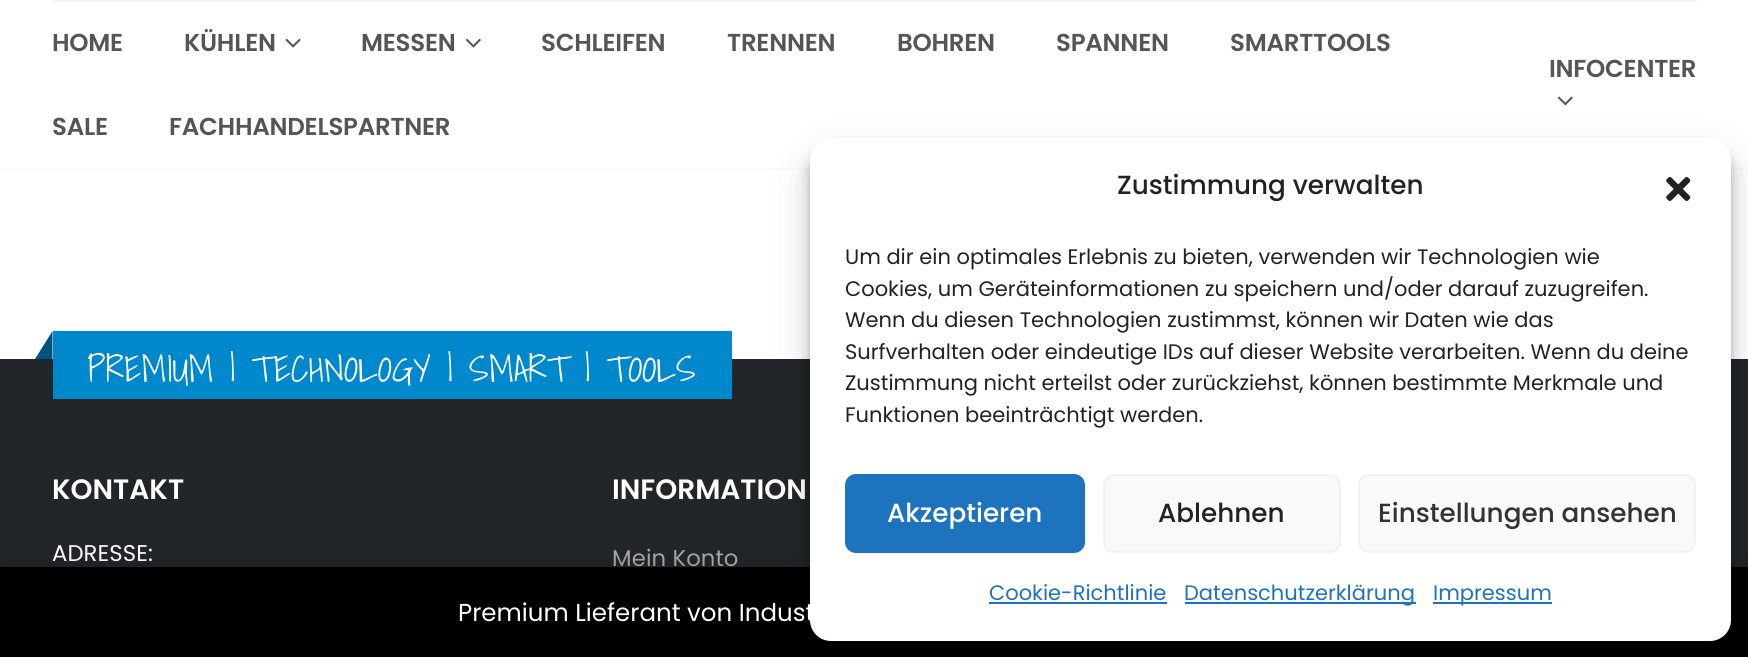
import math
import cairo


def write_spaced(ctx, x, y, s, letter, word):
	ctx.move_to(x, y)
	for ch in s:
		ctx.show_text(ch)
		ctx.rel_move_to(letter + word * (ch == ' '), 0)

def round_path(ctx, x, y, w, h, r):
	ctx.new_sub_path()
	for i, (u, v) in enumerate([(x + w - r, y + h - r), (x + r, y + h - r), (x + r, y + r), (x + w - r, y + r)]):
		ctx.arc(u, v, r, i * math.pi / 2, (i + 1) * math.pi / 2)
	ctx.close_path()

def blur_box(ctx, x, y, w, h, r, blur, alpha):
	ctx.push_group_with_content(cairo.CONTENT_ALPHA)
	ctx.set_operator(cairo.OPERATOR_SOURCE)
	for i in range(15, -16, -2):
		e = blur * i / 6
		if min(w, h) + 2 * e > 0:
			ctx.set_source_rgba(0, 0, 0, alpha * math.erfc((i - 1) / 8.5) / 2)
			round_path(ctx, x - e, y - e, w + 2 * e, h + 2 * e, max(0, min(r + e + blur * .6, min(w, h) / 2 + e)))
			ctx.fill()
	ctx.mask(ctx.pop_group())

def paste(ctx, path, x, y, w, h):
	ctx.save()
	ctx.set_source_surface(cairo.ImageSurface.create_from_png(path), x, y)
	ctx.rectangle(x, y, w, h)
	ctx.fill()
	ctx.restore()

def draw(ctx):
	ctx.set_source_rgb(1, 1, 1)
	ctx.paint()
	ctx.set_source_rgb(0, 0, 0)
	blur_box(ctx, 0, 0, 1748, 168, 0, 2.5, 0.06)
	ctx.set_source_rgb(1, 1, 1)
	ctx.rectangle(0, 0, 1748, 168)
	ctx.fill()
	ctx.set_source_rgb(0.957, 0.957, 0.957)
	ctx.rectangle(53, 0, 1645, 2)
	ctx.fill()
	ctx.select_font_face('Poppins SemiBold')
	ctx.set_font_size(24.5)
	ctx.set_source_rgb(0.333, 0.333, 0.333)
	write_spaced(ctx, 52, 51, 'HOME', -0.25, 0)
	write_spaced(ctx, 184, 51, 'KÜHLEN', -0.25, 0)
	paste(ctx, 'media/1.png', 285, 38, 16, 10)
	write_spaced(ctx, 361, 51, 'MESSEN', -0.25, 0)
	paste(ctx, 'media/2.png', 465, 38, 16, 10)
	for x, y, s in [
		(541, 51, 'SCHLEIFEN'),
		(727, 51, 'TRENNEN'),
		(897, 51, 'BOHREN'),
		(1056, 51, 'SPANNEN'),
		(1230, 51, 'SMARTTOOLS'),
		(52, 135, 'SALE'),
		(169, 135, 'FACHHANDELSPARTNER'),
		(1549, 77, 'INFOCENTER'),
	]:
		write_spaced(ctx, x, y, s, -0.25, 0)
	paste(ctx, 'media/3.png', 1557, 96, 16, 10)
	ctx.set_source_rgb(0.133, 0.145, 0.161)
	ctx.rectangle(0, 359, 1748, 208)
	ctx.fill()
	ctx.set_source_rgb(0, 0.533, 0.8)
	ctx.rectangle(53, 331, 679, 68)
	ctx.fill()
	ctx.set_source_rgb(0, 0.333, 0.502)
	ctx.new_path()
	ctx.move_to(52.5, 331)
	ctx.line_to(52.5, 359)
	ctx.line_to(35, 359)
	ctx.close_path()
	ctx.fill()
	ctx.select_font_face('Shadows Into Light Light')
	ctx.set_font_size(36.4)
	ctx.set_source_rgb(1, 1, 1)
	write_spaced(ctx, 87, 382, 'PREMIUM | TECHNOLOGY | SMART | TOOLS', 0.1, 0)
	ctx.select_font_face('Poppins SemiBold')
	ctx.set_font_size(28)
	ctx.move_to(52, 499)
	ctx.show_text('KONTAKT')
	ctx.select_font_face('Poppins')
	ctx.set_font_size(22.75)
	write_spaced(ctx, 52, 561, 'ADRESSE:', 0.1, 0)
	ctx.select_font_face('Poppins SemiBold')
	ctx.set_font_size(28)
	ctx.move_to(612, 499)
	ctx.show_text('INFORMATION')
	ctx.select_font_face('Poppins')
	ctx.set_font_size(22.75)
	ctx.set_source_rgb(0.659, 0.659, 0.659)
	write_spaced(ctx, 612, 566, 'Mein Konto', 0.1, 0)
	ctx.set_source_rgb(0, 0, 0)
	blur_box(ctx, 0, 569, 1748, 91, 0, 12, 0.2)
	ctx.set_source_rgb(0, 0, 0)
	ctx.rectangle(0, 567, 1748, 90)
	ctx.fill()
	ctx.set_source_rgb(0, 0, 0)
	blur_box(ctx, 810, 149, 921, 502, 21, 5, 0.23)
	blur_box(ctx, 810, 156, 921, 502, 21, 17.5, 0.19)
	ctx.set_source_rgb(1, 1, 1)
	round_path(ctx, 810, 138, 921, 503, 21)
	ctx.fill()
	ctx.select_font_face('Poppins Medium')
	ctx.set_font_size(26.25)
	ctx.set_source_rgb(0.133, 0.133, 0.133)
	ctx.move_to(1117, 194)
	ctx.show_text('Zustimmung verwalten')
	paste(ctx, 'media/4.png', 1666, 177, 25, 24)
	ctx.select_font_face('Poppins')
	ctx.set_font_size(21)
	for x, y, s in [
		(845, 264, 'Um dir ein optimales Erlebnis zu bieten, verwenden wir Technologien wie'),
		(845, 296, 'Cookies, um Geräteinformationen zu speichern und/oder darauf zuzugreifen.'),
		(845, 327, 'Wenn du diesen Technologien zustimmst, können wir Daten wie das'),
		(845, 359, 'Surfverhalten oder eindeutige IDs auf dieser Website verarbeiten. Wenn du deine'),
		(845, 390, 'Zustimmung nicht erteilst oder zurückziehst, können bestimmte Merkmale und'),
		(845, 422, 'Funktionen beeinträchtigt werden.'),
	]:
		ctx.move_to(x, y)
		ctx.show_text(s)
	ctx.set_source_rgb(0.118, 0.451, 0.745)
	round_path(ctx, 846, 475, 238, 77, 10)
	ctx.fill_preserve()
	ctx.stroke()
	ctx.select_font_face('Poppins Medium')
	ctx.set_font_size(26.25)
	ctx.set_source_rgb(1, 1, 1)
	ctx.move_to(887, 522)
	ctx.show_text('Akzeptieren')
	ctx.set_source_rgb(0.976, 0.976, 0.976)
	round_path(ctx, 1104, 475, 236, 77, 10)
	ctx.fill_preserve()
	ctx.set_source_rgb(0.949, 0.949, 0.949)
	ctx.stroke()
	ctx.set_source_rgb(0.133, 0.133, 0.133)
	ctx.move_to(1158, 522)
	ctx.show_text('Ablehnen')
	ctx.set_source_rgb(0.976, 0.976, 0.976)
	round_path(ctx, 1359, 475, 336, 77, 10)
	ctx.fill_preserve()
	ctx.set_source_rgb(0.949, 0.949, 0.949)
	ctx.stroke()
	ctx.set_source_rgb(0.2, 0.2, 0.2)
	ctx.move_to(1378, 522)
	ctx.show_text('Einstellungen ansehen')
	ctx.select_font_face('Poppins')
	ctx.set_font_size(21)
	ctx.set_source_rgb(0.118, 0.451, 0.745)
	ctx.move_to(989, 600)
	ctx.show_text('Cookie-Richtlinie')
	ctx.rectangle(989, 602, 178, 2)
	ctx.fill()
	ctx.rectangle(1185, 602, 231, 2)
	ctx.fill()
	ctx.move_to(1184, 600)
	ctx.show_text('Datenschutzerklärung')
	ctx.rectangle(1433, 602, 119, 2)
	ctx.fill()
	ctx.move_to(1433, 600)
	ctx.show_text('Impressum')
	ctx.set_font_size(24.5)
	ctx.set_source_rgb(1, 1, 1)
	ctx.move_to(458, 621)
	ctx.show_text('Premium Lieferant von Indust')


surface = cairo.ImageSurface(cairo.FORMAT_RGB24, 1748, 657)
ctx = cairo.Context(surface)
options = cairo.FontOptions()
options.set_hint_metrics(cairo.HINT_METRICS_OFF)
options.set_hint_style(cairo.HINT_STYLE_NONE)
ctx.set_font_options(options)
ctx.set_miter_limit(4)
draw(ctx)
surface.write_to_png('image.png')
